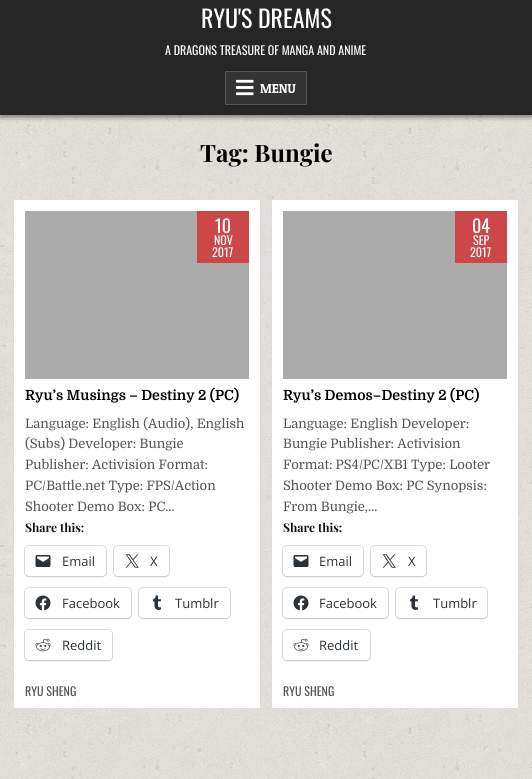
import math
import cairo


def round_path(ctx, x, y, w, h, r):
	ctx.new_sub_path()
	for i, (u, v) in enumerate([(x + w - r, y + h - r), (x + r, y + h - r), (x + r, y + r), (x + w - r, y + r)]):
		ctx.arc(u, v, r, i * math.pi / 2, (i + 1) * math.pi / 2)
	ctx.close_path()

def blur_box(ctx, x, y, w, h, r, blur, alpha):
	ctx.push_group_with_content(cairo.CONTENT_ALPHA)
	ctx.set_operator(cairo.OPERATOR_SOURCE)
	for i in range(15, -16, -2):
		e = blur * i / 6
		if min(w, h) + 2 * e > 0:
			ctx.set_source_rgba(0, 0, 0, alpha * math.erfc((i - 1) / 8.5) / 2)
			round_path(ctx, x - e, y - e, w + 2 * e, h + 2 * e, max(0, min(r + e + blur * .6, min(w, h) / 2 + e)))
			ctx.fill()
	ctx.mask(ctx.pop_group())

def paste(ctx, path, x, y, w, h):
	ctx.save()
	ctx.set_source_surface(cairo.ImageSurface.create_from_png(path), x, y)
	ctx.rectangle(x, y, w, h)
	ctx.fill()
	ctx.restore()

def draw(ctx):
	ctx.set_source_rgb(1, 1, 1)
	ctx.paint()
	paste(ctx, 'media/1.png', 0, 115, 532, 664)
	ctx.set_source_rgb(0, 0, 0)
	blur_box(ctx, 0, -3, 532, 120, 0, 2.5, 0.5)
	ctx.set_source_rgb(0.149, 0.149, 0.149)
	ctx.rectangle(0, 0, 532, 115)
	ctx.fill()
	ctx.select_font_face('Oswald')
	ctx.set_font_size(24)
	ctx.set_source_rgb(1, 1, 1)
	ctx.move_to(201, 28)
	ctx.show_text('RYU\'S DREAMS')
	ctx.set_font_size(12)
	ctx.move_to(165, 55)
	ctx.show_text('A DRAGONS TREASURE OF MANGA AND ANIME')
	ctx.set_source_rgb(0.2, 0.2, 0.2)
	ctx.rectangle(225.5, 71.5, 81, 33)
	ctx.fill_preserve()
	ctx.set_source_rgb(0.333, 0.333, 0.333)
	ctx.set_line_width(1)
	ctx.stroke()
	paste(ctx, 'media/2.png', 236, 79, 18, 17)
	ctx.select_font_face('Patua One')
	ctx.set_font_size(13)
	ctx.set_source_rgb(1, 1, 1)
	ctx.move_to(260, 93)
	ctx.show_text('MENU')
	ctx.select_font_face('Playfair Display', cairo.FONT_SLANT_NORMAL, cairo.FONT_WEIGHT_BOLD)
	ctx.set_font_size(24)
	ctx.set_source_rgb(0, 0, 0)
	ctx.move_to(200, 162)
	ctx.show_text('Tag: Bungie')
	ctx.set_source_rgb(1, 1, 1)
	ctx.rectangle(13.5, 199.5, 247, 509)
	ctx.fill_preserve()
	ctx.set_source_rgb(0.867, 0.867, 0.867)
	ctx.stroke()
	ctx.set_source_rgb(0.671, 0.671, 0.671)
	ctx.rectangle(25, 211, 224, 168)
	ctx.fill()
	ctx.set_source_rgb(0.8, 0.278, 0.278)
	ctx.rectangle(197, 211, 52, 52)
	ctx.fill()
	ctx.select_font_face('Oswald')
	ctx.set_font_size(18)
	ctx.set_source_rgb(1, 1, 1)
	ctx.move_to(215, 233)
	ctx.show_text('10')
	ctx.set_font_size(12)
	ctx.move_to(214, 245)
	ctx.show_text('NOV')
	ctx.move_to(212, 257)
	ctx.show_text('2017')
	ctx.select_font_face('Domine', cairo.FONT_SLANT_NORMAL, cairo.FONT_WEIGHT_BOLD)
	ctx.set_font_size(14)
	ctx.set_source_rgb(0, 0, 0)
	ctx.move_to(25, 400)
	ctx.show_text('Ryu’s Musings – Destiny 2 (PC)')
	ctx.select_font_face('Domine')
	ctx.set_font_size(13)
	ctx.set_source_rgb(0.333, 0.333, 0.333)
	for x, y, s in [
		(25, 428, 'Language: English (Audio), English'),
		(25, 448, '(Subs) Developer: Bungie'),
		(25, 469, 'Publisher: Activision Format:'),
		(25, 490, 'PC/Battle.net Type: FPS/Action'),
		(25, 511, 'Shooter Demo Box: PC…'),
	]:
		ctx.move_to(x, y)
		ctx.show_text(s)
	ctx.select_font_face('Playfair Display', cairo.FONT_SLANT_NORMAL, cairo.FONT_WEIGHT_BOLD)
	ctx.set_font_size(12)
	ctx.set_source_rgb(0.067, 0.067, 0.067)
	ctx.move_to(25, 532)
	ctx.show_text('Share this:')
	round_path(ctx, 24.5, 545.5, 82, 31, 4.5)
	ctx.set_source_rgb(0.878, 0.878, 0.878)
	ctx.stroke()
	ctx.set_source_rgb(0, 0, 0)
	blur_box(ctx, 25, 547, 81, 30, 4, 1, 0.12)
	ctx.set_source_rgb(1, 1, 1)
	round_path(ctx, 25, 546, 81, 30, 4)
	ctx.fill()
	paste(ctx, 'media/3.png', 35, 555, 16, 12)
	ctx.select_font_face('Open Sans')
	ctx.set_font_size(13)
	ctx.set_source_rgb(0.173, 0.2, 0.22)
	ctx.move_to(62, 566)
	ctx.show_text('Email')
	round_path(ctx, 113.5, 545.5, 56, 31, 4.5)
	ctx.set_source_rgb(0.878, 0.878, 0.878)
	ctx.stroke()
	ctx.set_source_rgb(0, 0, 0)
	blur_box(ctx, 114, 547, 55, 30, 4, 1, 0.12)
	ctx.set_source_rgb(1, 1, 1)
	round_path(ctx, 114, 546, 55, 30, 4)
	ctx.fill()
	paste(ctx, 'media/4.png', 125, 554, 14, 14)
	ctx.set_source_rgb(0.173, 0.2, 0.22)
	ctx.move_to(150, 566)
	ctx.show_text('X')
	round_path(ctx, 24.5, 587.5, 107, 31, 4.5)
	ctx.set_source_rgb(0.878, 0.878, 0.878)
	ctx.stroke()
	ctx.set_source_rgb(0, 0, 0)
	blur_box(ctx, 25, 589, 106, 30, 4, 1, 0.12)
	ctx.set_source_rgb(1, 1, 1)
	round_path(ctx, 25, 588, 106, 30, 4)
	ctx.fill()
	paste(ctx, 'media/5.png', 35, 595, 16, 16)
	ctx.set_source_rgb(0.173, 0.2, 0.22)
	ctx.move_to(62, 608)
	ctx.show_text('Facebook')
	round_path(ctx, 138.5, 587.5, 92, 31, 4.5)
	ctx.set_source_rgb(0.878, 0.878, 0.878)
	ctx.stroke()
	ctx.set_source_rgb(0, 0, 0)
	blur_box(ctx, 139, 589, 91, 30, 4, 1, 0.12)
	ctx.set_source_rgb(1, 1, 1)
	round_path(ctx, 139, 588, 91, 30, 4)
	ctx.fill()
	paste(ctx, 'media/6.png', 152, 595, 10, 15)
	ctx.set_source_rgb(0.173, 0.2, 0.22)
	ctx.move_to(175, 608)
	ctx.show_text('Tumblr')
	round_path(ctx, 24.5, 629.5, 88, 31, 4.5)
	ctx.set_source_rgb(0.878, 0.878, 0.878)
	ctx.stroke()
	ctx.set_source_rgb(0, 0, 0)
	blur_box(ctx, 25, 631, 87, 30, 4, 1, 0.12)
	ctx.set_source_rgb(1, 1, 1)
	round_path(ctx, 25, 630, 87, 30, 4)
	ctx.fill()
	paste(ctx, 'media/7.png', 35, 638, 16, 14)
	ctx.set_source_rgb(0.173, 0.2, 0.22)
	ctx.move_to(62, 650)
	ctx.show_text('Reddit')
	ctx.select_font_face('Oswald')
	ctx.set_font_size(12)
	ctx.set_source_rgb(0.333, 0.333, 0.333)
	ctx.move_to(25, 696)
	ctx.show_text('RYU SHENG')
	ctx.set_source_rgb(1, 1, 1)
	ctx.rectangle(271.5, 199.5, 247, 509)
	ctx.fill_preserve()
	ctx.set_source_rgb(0.867, 0.867, 0.867)
	ctx.stroke()
	ctx.set_source_rgb(0.671, 0.671, 0.671)
	ctx.rectangle(283, 211, 224, 168)
	ctx.fill()
	ctx.set_source_rgb(0.8, 0.278, 0.278)
	ctx.rectangle(455, 211, 52, 52)
	ctx.fill()
	ctx.set_font_size(18)
	ctx.set_source_rgb(1, 1, 1)
	ctx.move_to(472, 233)
	ctx.show_text('04')
	ctx.set_font_size(12)
	ctx.move_to(473, 245)
	ctx.show_text('SEP')
	ctx.move_to(470, 257)
	ctx.show_text('2017')
	ctx.select_font_face('Domine', cairo.FONT_SLANT_NORMAL, cairo.FONT_WEIGHT_BOLD)
	ctx.set_font_size(14)
	ctx.set_source_rgb(0, 0, 0)
	ctx.move_to(283, 400)
	ctx.show_text('Ryu’s Demos–Destiny 2 (PC)')
	ctx.select_font_face('Domine')
	ctx.set_font_size(13)
	ctx.set_source_rgb(0.333, 0.333, 0.333)
	for x, y, s in [
		(283, 428, 'Language: English Developer:'),
		(283, 448, 'Bungie Publisher: Activision'),
		(283, 469, 'Format: PS4/PC/XB1 Type: Looter'),
		(283, 490, 'Shooter Demo Box: PC Synopsis:'),
		(283, 511, 'From Bungie,…'),
	]:
		ctx.move_to(x, y)
		ctx.show_text(s)
	ctx.select_font_face('Playfair Display', cairo.FONT_SLANT_NORMAL, cairo.FONT_WEIGHT_BOLD)
	ctx.set_font_size(12)
	ctx.set_source_rgb(0.067, 0.067, 0.067)
	ctx.move_to(283, 532)
	ctx.show_text('Share this:')
	round_path(ctx, 282.5, 545.5, 81, 31, 4.5)
	ctx.set_source_rgb(0.878, 0.878, 0.878)
	ctx.stroke()
	ctx.set_source_rgb(0, 0, 0)
	blur_box(ctx, 283, 547, 80, 30, 4, 1, 0.12)
	ctx.set_source_rgb(1, 1, 1)
	round_path(ctx, 283, 546, 80, 30, 4)
	ctx.fill()
	paste(ctx, 'media/3.png', 293, 555, 16, 12)
	ctx.select_font_face('Open Sans')
	ctx.set_font_size(13)
	ctx.set_source_rgb(0.173, 0.2, 0.22)
	ctx.move_to(319, 566)
	ctx.show_text('Email')
	round_path(ctx, 370.5, 545.5, 56, 31, 4.5)
	ctx.set_source_rgb(0.878, 0.878, 0.878)
	ctx.stroke()
	ctx.set_source_rgb(0, 0, 0)
	blur_box(ctx, 371, 547, 55, 30, 4, 1, 0.12)
	ctx.set_source_rgb(1, 1, 1)
	round_path(ctx, 371, 546, 55, 30, 4)
	ctx.fill()
	paste(ctx, 'media/4.png', 382, 554, 14, 14)
	ctx.set_source_rgb(0.173, 0.2, 0.22)
	ctx.move_to(408, 566)
	ctx.show_text('X')
	round_path(ctx, 282.5, 587.5, 106, 31, 4.5)
	ctx.set_source_rgb(0.878, 0.878, 0.878)
	ctx.stroke()
	ctx.set_source_rgb(0, 0, 0)
	blur_box(ctx, 283, 589, 105, 30, 4, 1, 0.12)
	ctx.set_source_rgb(1, 1, 1)
	round_path(ctx, 283, 588, 105, 30, 4)
	ctx.fill()
	paste(ctx, 'media/5.png', 293, 595, 16, 16)
	ctx.set_source_rgb(0.173, 0.2, 0.22)
	ctx.move_to(319, 608)
	ctx.show_text('Facebook')
	round_path(ctx, 395.5, 587.5, 92, 31, 4.5)
	ctx.set_source_rgb(0.878, 0.878, 0.878)
	ctx.stroke()
	ctx.set_source_rgb(0, 0, 0)
	blur_box(ctx, 396, 589, 91, 30, 4, 1, 0.12)
	ctx.set_source_rgb(1, 1, 1)
	round_path(ctx, 396, 588, 91, 30, 4)
	ctx.fill()
	paste(ctx, 'media/6.png', 409, 595, 10, 15)
	ctx.set_source_rgb(0.173, 0.2, 0.22)
	ctx.move_to(433, 608)
	ctx.show_text('Tumblr')
	round_path(ctx, 282.5, 629.5, 88, 31, 4.5)
	ctx.set_source_rgb(0.878, 0.878, 0.878)
	ctx.stroke()
	ctx.set_source_rgb(0, 0, 0)
	blur_box(ctx, 283, 631, 87, 30, 4, 1, 0.12)
	ctx.set_source_rgb(1, 1, 1)
	round_path(ctx, 283, 630, 87, 30, 4)
	ctx.fill()
	paste(ctx, 'media/7.png', 293, 638, 16, 14)
	ctx.set_source_rgb(0.173, 0.2, 0.22)
	ctx.move_to(319, 650)
	ctx.show_text('Reddit')
	ctx.select_font_face('Oswald')
	ctx.set_font_size(12)
	ctx.set_source_rgb(0.333, 0.333, 0.333)
	ctx.move_to(283, 696)
	ctx.show_text('RYU SHENG')


surface = cairo.ImageSurface(cairo.FORMAT_RGB24, 532, 779)
ctx = cairo.Context(surface)
options = cairo.FontOptions()
options.set_hint_metrics(cairo.HINT_METRICS_OFF)
options.set_hint_style(cairo.HINT_STYLE_NONE)
ctx.set_font_options(options)
ctx.set_miter_limit(4)
draw(ctx)
surface.write_to_png('image.png')
